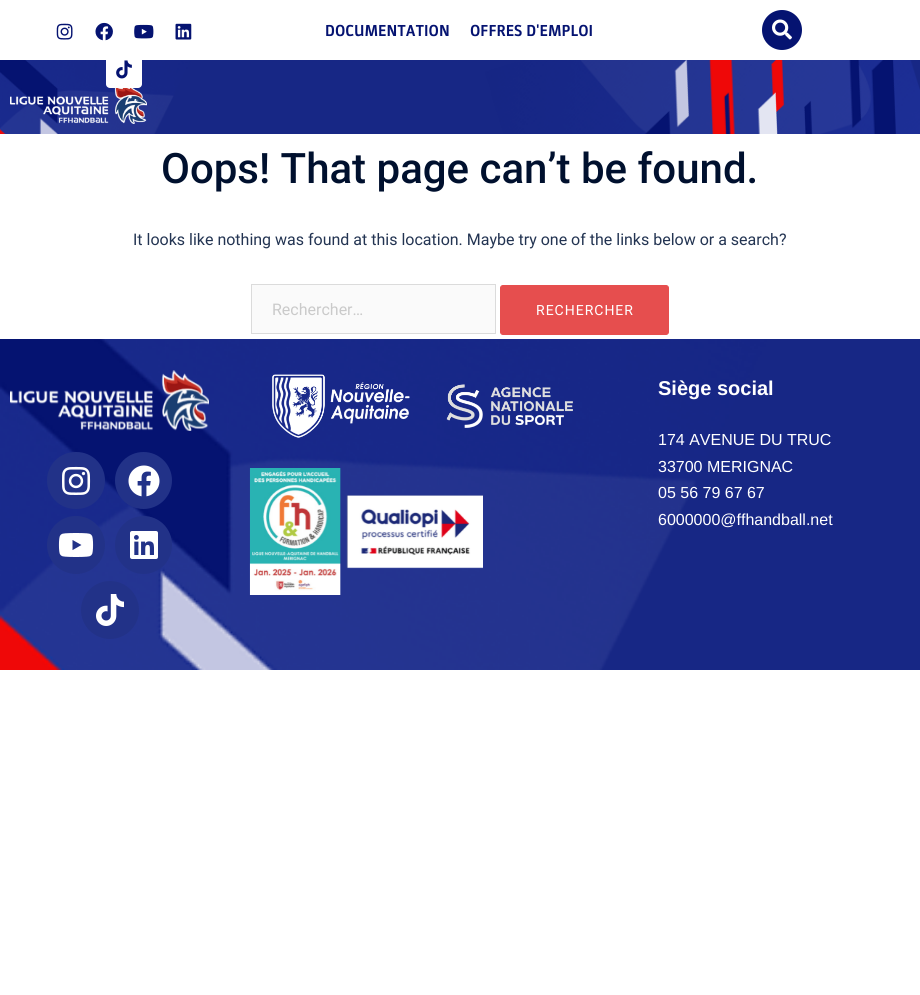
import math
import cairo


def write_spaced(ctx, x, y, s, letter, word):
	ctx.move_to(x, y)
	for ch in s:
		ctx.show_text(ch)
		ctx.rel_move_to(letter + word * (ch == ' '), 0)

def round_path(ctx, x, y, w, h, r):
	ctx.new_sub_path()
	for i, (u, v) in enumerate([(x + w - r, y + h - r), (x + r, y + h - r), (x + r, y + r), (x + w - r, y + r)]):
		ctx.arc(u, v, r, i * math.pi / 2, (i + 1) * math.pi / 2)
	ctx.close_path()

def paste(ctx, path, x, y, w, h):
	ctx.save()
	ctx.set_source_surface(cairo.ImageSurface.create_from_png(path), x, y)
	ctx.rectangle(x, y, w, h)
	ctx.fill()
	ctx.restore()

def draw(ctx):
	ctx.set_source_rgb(1, 1, 1)
	ctx.paint()
	paste(ctx, 'media/1.png', 56, 23, 17, 17)
	paste(ctx, 'media/2.png', 95, 22, 18, 19)
	paste(ctx, 'media/3.png', 134, 24, 20, 15)
	paste(ctx, 'media/4.png', 175, 23, 17, 17)
	paste(ctx, 'media/7.png', 0, 60, 920, 74)
	ctx.set_source_rgb(1, 1, 1)
	round_path(ctx, 106, 52, 36, 36, 4)
	ctx.fill()
	paste(ctx, 'media/5.png', 116, 60, 16, 19)
	ctx.select_font_face('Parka', cairo.FONT_SLANT_NORMAL, cairo.FONT_WEIGHT_BOLD)
	ctx.set_font_size(16)
	ctx.set_source_rgb(0.02, 0.075, 0.443)
	ctx.move_to(325, 36)
	ctx.show_text('DOCUMENTATION')
	ctx.move_to(470, 36)
	ctx.show_text('OFFRES D\'EMPLOI')
	ctx.new_path()
	ctx.arc(782, 30, 20, 0, 2 * math.pi)
	ctx.fill()
	paste(ctx, 'media/6.png', 772, 19, 20, 21)
	paste(ctx, 'media/8.png', 10, 88, 137, 36)
	ctx.select_font_face('Roboto Medium')
	ctx.set_font_size(42)
	ctx.set_source_rgb(0, 0.063, 0.18)
	ctx.move_to(161, 183)
	ctx.show_text('Oops! That page can’t be found.')
	ctx.select_font_face('Roboto')
	ctx.set_font_size(16)
	ctx.set_source_rgb(0.137, 0.204, 0.322)
	ctx.move_to(133, 245)
	ctx.show_text('It looks like nothing was found at this location. Maybe try one of the links below or a search?')
	ctx.set_source_rgb(0.98, 0.98, 0.98)
	ctx.rectangle(251.5, 284.5, 244, 49)
	ctx.fill_preserve()
	ctx.set_source_rgb(0.859, 0.859, 0.859)
	ctx.set_line_width(1)
	ctx.stroke()
	ctx.set_source_rgb(0.792, 0.792, 0.792)
	ctx.move_to(272, 315)
	ctx.show_text('Rechercher…')
	ctx.set_source_rgb(0.902, 0.306, 0.306)
	round_path(ctx, 500.5, 285.5, 168, 49, 2.5)
	ctx.fill_preserve()
	ctx.stroke()
	ctx.set_font_size(14)
	ctx.set_source_rgb(1, 1, 1)
	write_spaced(ctx, 536, 315, 'RECHERCHER', 1, 0)
	paste(ctx, 'media/9.png', 0, 339, 920, 331)
	paste(ctx, 'media/10.png', 10, 370, 199, 61)
	ctx.set_source_rgb(0.133, 0.196, 0.533)
	round_path(ctx, 47, 452, 58, 57, 28.5)
	ctx.fill()
	paste(ctx, 'media/11.png', 62, 466, 29, 29)
	ctx.arc(143.5, 480.5, 28.5, 0, 2 * math.pi)
	ctx.fill()
	paste(ctx, 'media/12.png', 128, 465, 32, 32)
	ctx.arc(76, 545, 29, 0, 2 * math.pi)
	ctx.fill()
	paste(ctx, 'media/13.png', 58, 533, 36, 24)
	round_path(ctx, 115, 516, 57, 58, 28.5)
	ctx.fill()
	paste(ctx, 'media/14.png', 130, 531, 28, 28)
	ctx.arc(110, 610, 29, 0, 2 * math.pi)
	ctx.fill()
	paste(ctx, 'media/15.png', 96, 594, 28, 32)
	paste(ctx, 'media/16.png', 272, 374, 301, 64)
	paste(ctx, 'media/17.png', 249, 468, 234, 127)
	ctx.select_font_face('Liberation Sans', cairo.FONT_SLANT_NORMAL, cairo.FONT_WEIGHT_BOLD)
	ctx.set_font_size(20)
	ctx.set_source_rgb(1, 1, 1)
	ctx.move_to(658, 395)
	ctx.show_text('Siège social')
	ctx.select_font_face('Liberation Sans')
	ctx.set_font_size(16)
	for x, y, s in [
		(658, 445, '174 AVENUE DU TRUC'),
		(658, 472, '33700 MERIGNAC'),
		(658, 498, '05 56 79 67 67'),
		(658, 525, '6000000@ffhandball.net'),
	]:
		ctx.move_to(x, y)
		ctx.show_text(s)


surface = cairo.ImageSurface(cairo.FORMAT_RGB24, 920, 995)
ctx = cairo.Context(surface)
options = cairo.FontOptions()
options.set_hint_metrics(cairo.HINT_METRICS_OFF)
options.set_hint_style(cairo.HINT_STYLE_NONE)
ctx.set_font_options(options)
ctx.set_miter_limit(4)
draw(ctx)
surface.write_to_png('image.png')
